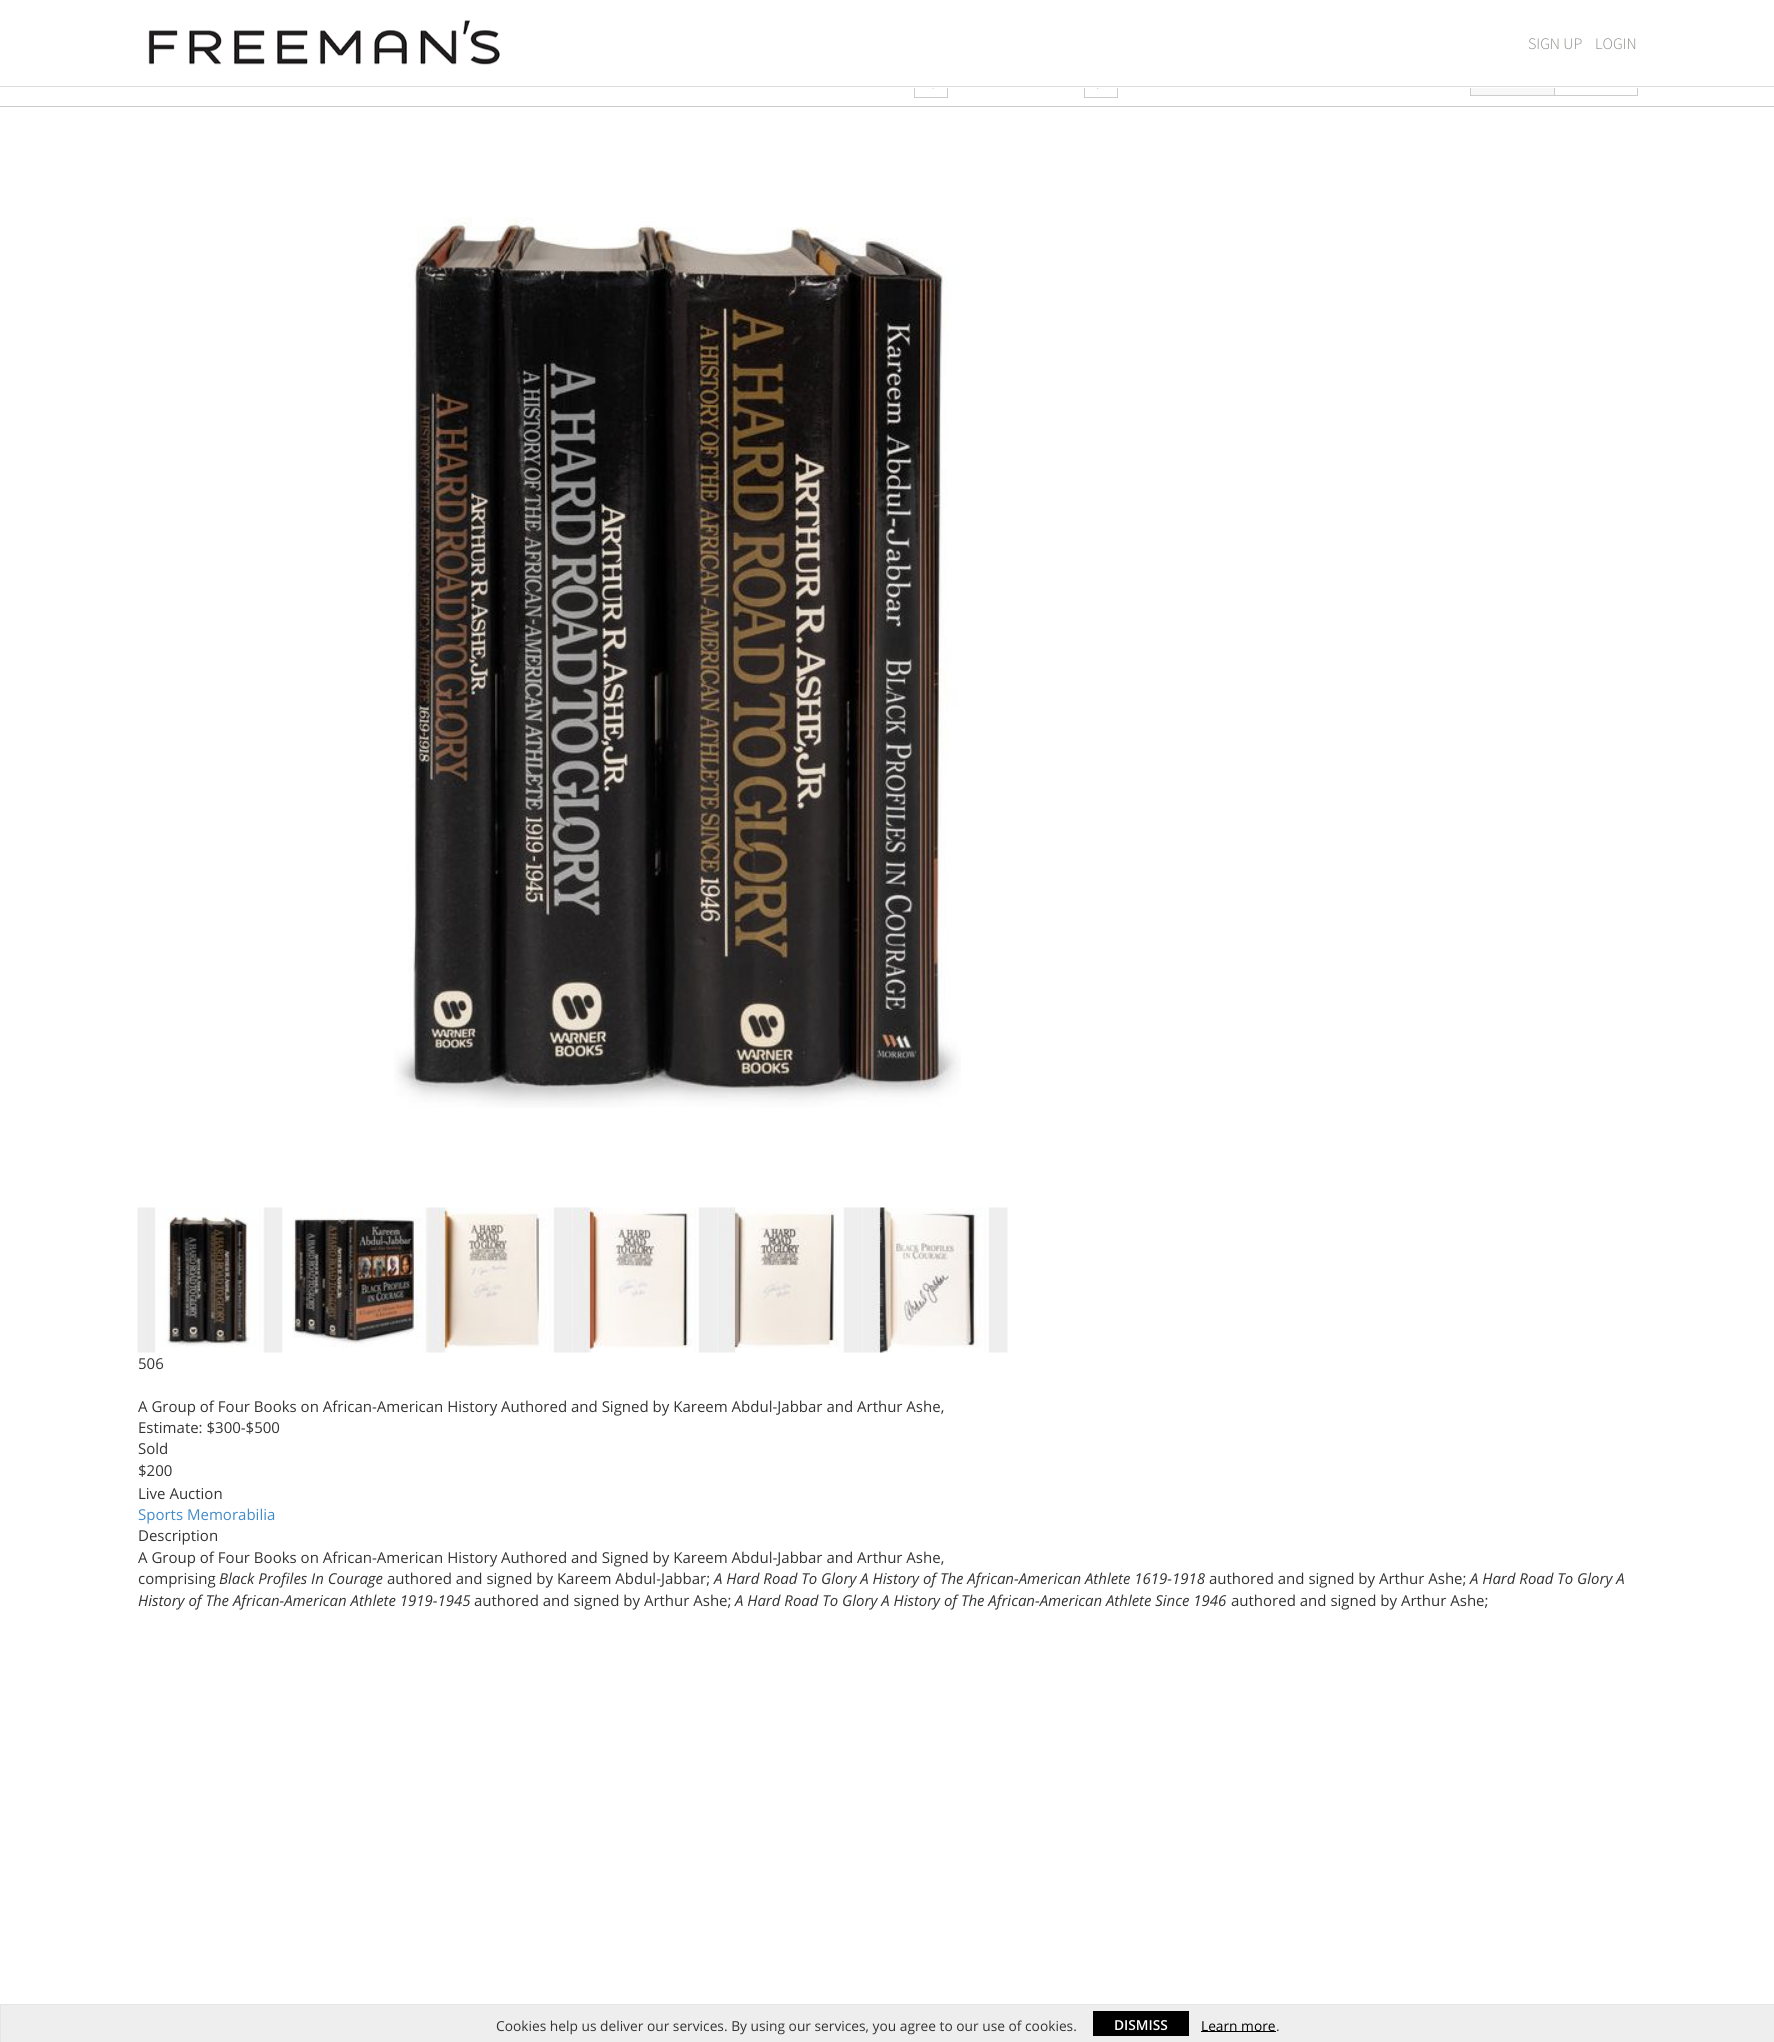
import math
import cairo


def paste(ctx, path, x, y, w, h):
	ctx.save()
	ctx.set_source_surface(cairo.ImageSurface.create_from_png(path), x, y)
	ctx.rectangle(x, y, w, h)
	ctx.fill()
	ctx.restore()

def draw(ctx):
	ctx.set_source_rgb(1, 1, 1)
	ctx.paint()
	ctx.rectangle(914.5, 64.5, 33, 33)
	ctx.set_source_rgb(0.8, 0.8, 0.8)
	ctx.set_line_width(1)
	ctx.stroke()
	ctx.rectangle(1084.5, 64.5, 33, 33)
	ctx.stroke()
	ctx.rectangle(1554.5, 63.5, 83, 32)
	ctx.stroke()
	ctx.set_source_rgb(1, 1, 1)
	ctx.rectangle(914, 63, 724, 25)
	ctx.fill()
	ctx.set_source_rgb(0.863, 0.863, 0.863)
	ctx.rectangle(0, 86, 1774, 1)
	ctx.fill()
	paste(ctx, 'media/1.png', 148, 20, 352, 45)
	ctx.select_font_face('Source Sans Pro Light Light')
	ctx.set_font_size(16)
	ctx.set_source_rgb(0.541, 0.541, 0.529)
	ctx.move_to(1528, 49)
	ctx.show_text('SIGN UP')
	ctx.move_to(1595, 49)
	ctx.show_text('LOGIN')
	ctx.set_source_rgb(0.8, 0.8, 0.8)
	ctx.rectangle(0, 106, 1774, 1)
	ctx.fill()
	ctx.set_source_rgb(1, 1, 1)
	ctx.rectangle(119, 106, 1537, 1)
	ctx.fill()
	ctx.set_source_rgb(0.8, 0.8, 0.8)
	ctx.rectangle(119, 106, 1537, 1)
	ctx.fill()
	paste(ctx, 'media/2.png', 932, 88, 2, 1)
	paste(ctx, 'media/3.png', 1097, 88, 2, 1)
	ctx.set_source_rgb(0.969, 0.969, 0.969)
	ctx.rectangle(1471, 88, 83, 7)
	ctx.fill()
	ctx.set_source_rgb(0.8, 0.8, 0.8)
	ctx.rectangle(1470, 95, 84, 1)
	ctx.rectangle(1470, 88, 1, 8)
	ctx.fill()
	paste(ctx, 'media/4.png', 394, 217, 567, 891)
	paste(ctx, 'media/5.png', 137, 1207, 146, 146)
	paste(ctx, 'media/6.png', 282, 1207, 146, 146)
	paste(ctx, 'media/7.png', 427, 1207, 146, 146)
	paste(ctx, 'media/8.png', 572, 1207, 146, 146)
	paste(ctx, 'media/9.png', 717, 1207, 146, 146)
	paste(ctx, 'media/10.png', 862, 1207, 146, 146)
	ctx.select_font_face('Open Sans')
	ctx.set_font_size(15)
	ctx.set_source_rgb(0.2, 0.2, 0.2)
	for x, y, s in [
		(138, 1369, '506'),
		(138, 1412, 'A Group of Four Books on African-American History Authored and Signed by Kareem Abdul-Jabbar and Arthur Ashe,'),
		(138, 1433, 'Estimate: $300-$500'),
		(138, 1454, 'Sold'),
		(138, 1476, '$200'),
		(138, 1499, 'Live Auction'),
	]:
		ctx.move_to(x, y)
		ctx.show_text(s)
	ctx.set_source_rgb(0.259, 0.545, 0.792)
	ctx.move_to(138, 1520)
	ctx.show_text('Sports Memorabilia')
	ctx.set_source_rgb(0.2, 0.2, 0.2)
	for x, y, s in [
		(138, 1541, 'Description'),
		(138, 1563, 'A Group of Four Books on African-American History Authored and Signed by Kareem Abdul-Jabbar and Arthur Ashe,'),
		(138, 1584, 'comprising'),
	]:
		ctx.move_to(x, y)
		ctx.show_text(s)
	ctx.select_font_face('Open Sans', cairo.FONT_SLANT_ITALIC)
	ctx.move_to(219, 1584)
	ctx.show_text('Black Profiles In Courage')
	ctx.select_font_face('Open Sans')
	ctx.move_to(387, 1584)
	ctx.show_text('authored and signed by Kareem Abdul-Jabbar;')
	ctx.select_font_face('Open Sans', cairo.FONT_SLANT_ITALIC)
	ctx.move_to(714, 1584)
	ctx.show_text('A Hard Road To Glory A History of The African-American Athlete 1619-1918')
	ctx.select_font_face('Open Sans')
	ctx.move_to(1209, 1584)
	ctx.show_text('authored and signed by Arthur Ashe;')
	ctx.select_font_face('Open Sans', cairo.FONT_SLANT_ITALIC)
	ctx.move_to(1470, 1584)
	ctx.show_text('A Hard Road To Glory A')
	ctx.move_to(138, 1606)
	ctx.show_text('History of The African-American Athlete 1919-1945')
	ctx.select_font_face('Open Sans')
	ctx.move_to(474, 1606)
	ctx.show_text('authored and signed by Arthur Ashe;')
	ctx.select_font_face('Open Sans', cairo.FONT_SLANT_ITALIC)
	ctx.move_to(735, 1606)
	ctx.show_text('A Hard Road To Glory A History of The African-American Athlete Since 1946')
	ctx.select_font_face('Open Sans')
	ctx.move_to(1231, 1606)
	ctx.show_text('authored and signed by Arthur Ashe;')
	ctx.set_source_rgb(0.933, 0.933, 0.933)
	ctx.rectangle(1, 2005, 1773, 37)
	ctx.fill()
	ctx.set_source_rgb(0.894, 0.894, 0.894)
	ctx.rectangle(0, 2004, 1774, 1)
	ctx.rectangle(0, 2004, 1, 38)
	ctx.fill()
	ctx.set_font_size(13.75)
	ctx.set_source_rgb(0.2, 0.2, 0.2)
	ctx.move_to(496, 2031)
	ctx.show_text('Cookies help us deliver our services. By using our services, you agree to our use of cookies.')
	ctx.set_source_rgb(0, 0, 0)
	ctx.rectangle(1093, 2011, 96, 25)
	ctx.fill()
	ctx.select_font_face('Open Sans SemiBold')
	ctx.set_source_rgb(1, 1, 1)
	ctx.move_to(1114, 2030)
	ctx.show_text('DISMISS')
	ctx.set_source_rgb(0, 0, 0)
	ctx.rectangle(1201, 2031, 75, 1)
	ctx.fill()
	ctx.select_font_face('Open Sans')
	ctx.move_to(1201, 2031)
	ctx.show_text('Learn more')
	ctx.set_source_rgb(0.2, 0.2, 0.2)
	ctx.move_to(1276, 2031)
	ctx.show_text('.')


surface = cairo.ImageSurface(cairo.FORMAT_RGB24, 1774, 2042)
ctx = cairo.Context(surface)
options = cairo.FontOptions()
options.set_hint_metrics(cairo.HINT_METRICS_OFF)
options.set_hint_style(cairo.HINT_STYLE_NONE)
ctx.set_font_options(options)
ctx.set_miter_limit(4)
draw(ctx)
surface.write_to_png('image.png')
